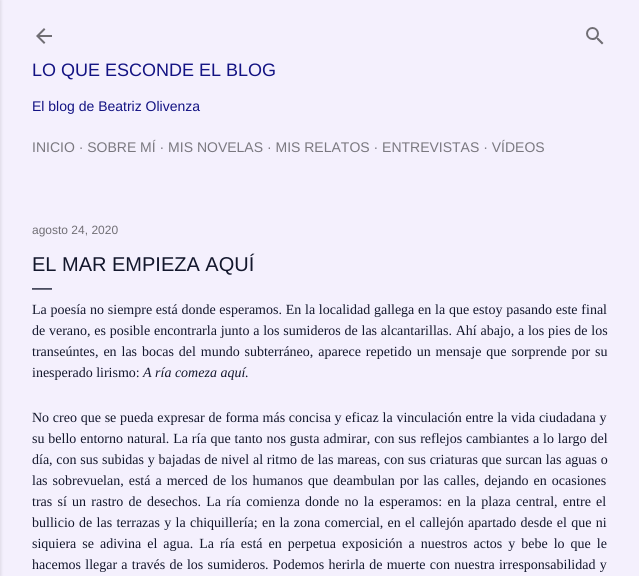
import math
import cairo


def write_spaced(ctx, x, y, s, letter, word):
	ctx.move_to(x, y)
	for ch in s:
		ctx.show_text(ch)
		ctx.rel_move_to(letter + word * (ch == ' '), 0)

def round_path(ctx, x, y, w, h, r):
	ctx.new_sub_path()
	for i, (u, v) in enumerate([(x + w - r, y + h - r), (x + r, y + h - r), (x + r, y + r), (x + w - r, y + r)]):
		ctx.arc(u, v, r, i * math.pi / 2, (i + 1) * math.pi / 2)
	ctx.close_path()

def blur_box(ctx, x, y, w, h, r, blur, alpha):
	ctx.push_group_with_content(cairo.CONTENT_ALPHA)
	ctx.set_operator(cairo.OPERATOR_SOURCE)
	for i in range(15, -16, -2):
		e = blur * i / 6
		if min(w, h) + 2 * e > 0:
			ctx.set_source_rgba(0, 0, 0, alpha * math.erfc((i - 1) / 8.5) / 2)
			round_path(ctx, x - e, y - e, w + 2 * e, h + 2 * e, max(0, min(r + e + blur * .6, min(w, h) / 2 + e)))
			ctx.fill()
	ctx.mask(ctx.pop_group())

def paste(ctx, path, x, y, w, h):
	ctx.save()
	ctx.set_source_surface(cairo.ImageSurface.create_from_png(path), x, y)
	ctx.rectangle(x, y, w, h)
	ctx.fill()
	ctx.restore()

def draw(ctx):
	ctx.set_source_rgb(0.957, 0.941, 0.992)
	ctx.paint()
	ctx.set_source_rgb(0, 0, 0)
	blur_box(ctx, -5, 0, 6, 576, 0, 1.5, 0.1)
	paste(ctx, 'media/1.png', 36, 28, 16, 16)
	paste(ctx, 'media/2.png', 586, 27, 18, 18)
	ctx.select_font_face('Liberation Sans')
	ctx.set_font_size(18)
	ctx.set_source_rgb(0.078, 0.078, 0.514)
	ctx.move_to(32, 76)
	ctx.show_text('LO QUE ESCONDE EL BLOG')
	ctx.set_font_size(14)
	ctx.move_to(32, 111)
	ctx.show_text('El blog de Beatriz Olivenza')
	ctx.set_source_rgb(0.478, 0.471, 0.498)
	ctx.move_to(32, 152)
	ctx.show_text('INICIO · SOBRE MÍ · MIS NOVELAS · MIS RELATOS · ENTREVISTAS · VÍDEOS')
	ctx.set_font_size(12)
	ctx.set_source_rgb(0.443, 0.435, 0.459)
	ctx.move_to(32, 234)
	ctx.show_text('agosto 24, 2020')
	ctx.set_font_size(20)
	ctx.set_source_rgb(0.078, 0.09, 0.173)
	ctx.move_to(32, 271)
	ctx.show_text('EL MAR EMPIEZA AQUÍ')
	ctx.move_to(32, 294)
	ctx.show_text('—')
	ctx.select_font_face('Liberation Serif')
	ctx.set_font_size(14)
	write_spaced(ctx, 32, 314, 'La poesía no siempre está donde esperamos. En la localidad gallega en la que estoy pasando este final', 0, 0.25)
	write_spaced(ctx, 32, 335, 'de verano, es posible encontrarla junto a los sumideros de las alcantarillas. Ahí abajo, a los pies de los', 0, 0.25)
	write_spaced(ctx, 32, 356, 'transeúntes, en las bocas del mundo subterráneo, aparece repetido un mensaje que sorprende por su', 0, 1.4)
	ctx.move_to(32, 377)
	ctx.show_text('inesperado lirismo:')
	ctx.select_font_face('Liberation Serif', cairo.FONT_SLANT_ITALIC)
	ctx.move_to(143, 377)
	ctx.show_text('A ría comeza aquí.')
	ctx.select_font_face('Liberation Serif')
	write_spaced(ctx, 32, 422, 'No creo que se pueda expresar de forma más concisa y eficaz la vinculación entre la vida ciudadana y', 0, 0.25)
	write_spaced(ctx, 32, 443, 'su bello entorno natural. La ría que tanto nos gusta admirar, con sus reflejos cambiantes a lo largo del', 0, 0.4)
	write_spaced(ctx, 32, 464, 'día, con sus subidas y bajadas de nivel al ritmo de las mareas, con sus criaturas que surcan las aguas o', 0, 0.25)
	write_spaced(ctx, 32, 485, 'las sobrevuelan, está a merced de los humanos que deambulan por las calles, dejando en ocasiones', 0, 1.5)
	write_spaced(ctx, 32, 506, 'tras sí un rastro de desechos. La ría comienza donde no la esperamos: en la plaza central, entre el', 0, 1.75)
	write_spaced(ctx, 32, 527, 'bullicio de las terrazas y la chiquillería; en la zona comercial, en el callejón apartado desde el que ni', 0, 0.8)
	write_spaced(ctx, 32, 548, 'siquiera se adivina el agua. La ría está en perpetua exposición a nuestros actos y bebe lo que le', 0, 2.5)
	write_spaced(ctx, 32, 569, 'hacemos llegar a través de los sumideros. Podemos herirla de muerte con nuestra irresponsabilidad y', 0, 0.75)


surface = cairo.ImageSurface(cairo.FORMAT_RGB24, 639, 576)
ctx = cairo.Context(surface)
options = cairo.FontOptions()
options.set_hint_metrics(cairo.HINT_METRICS_OFF)
options.set_hint_style(cairo.HINT_STYLE_NONE)
ctx.set_font_options(options)
ctx.set_miter_limit(4)
draw(ctx)
surface.write_to_png('image.png')
